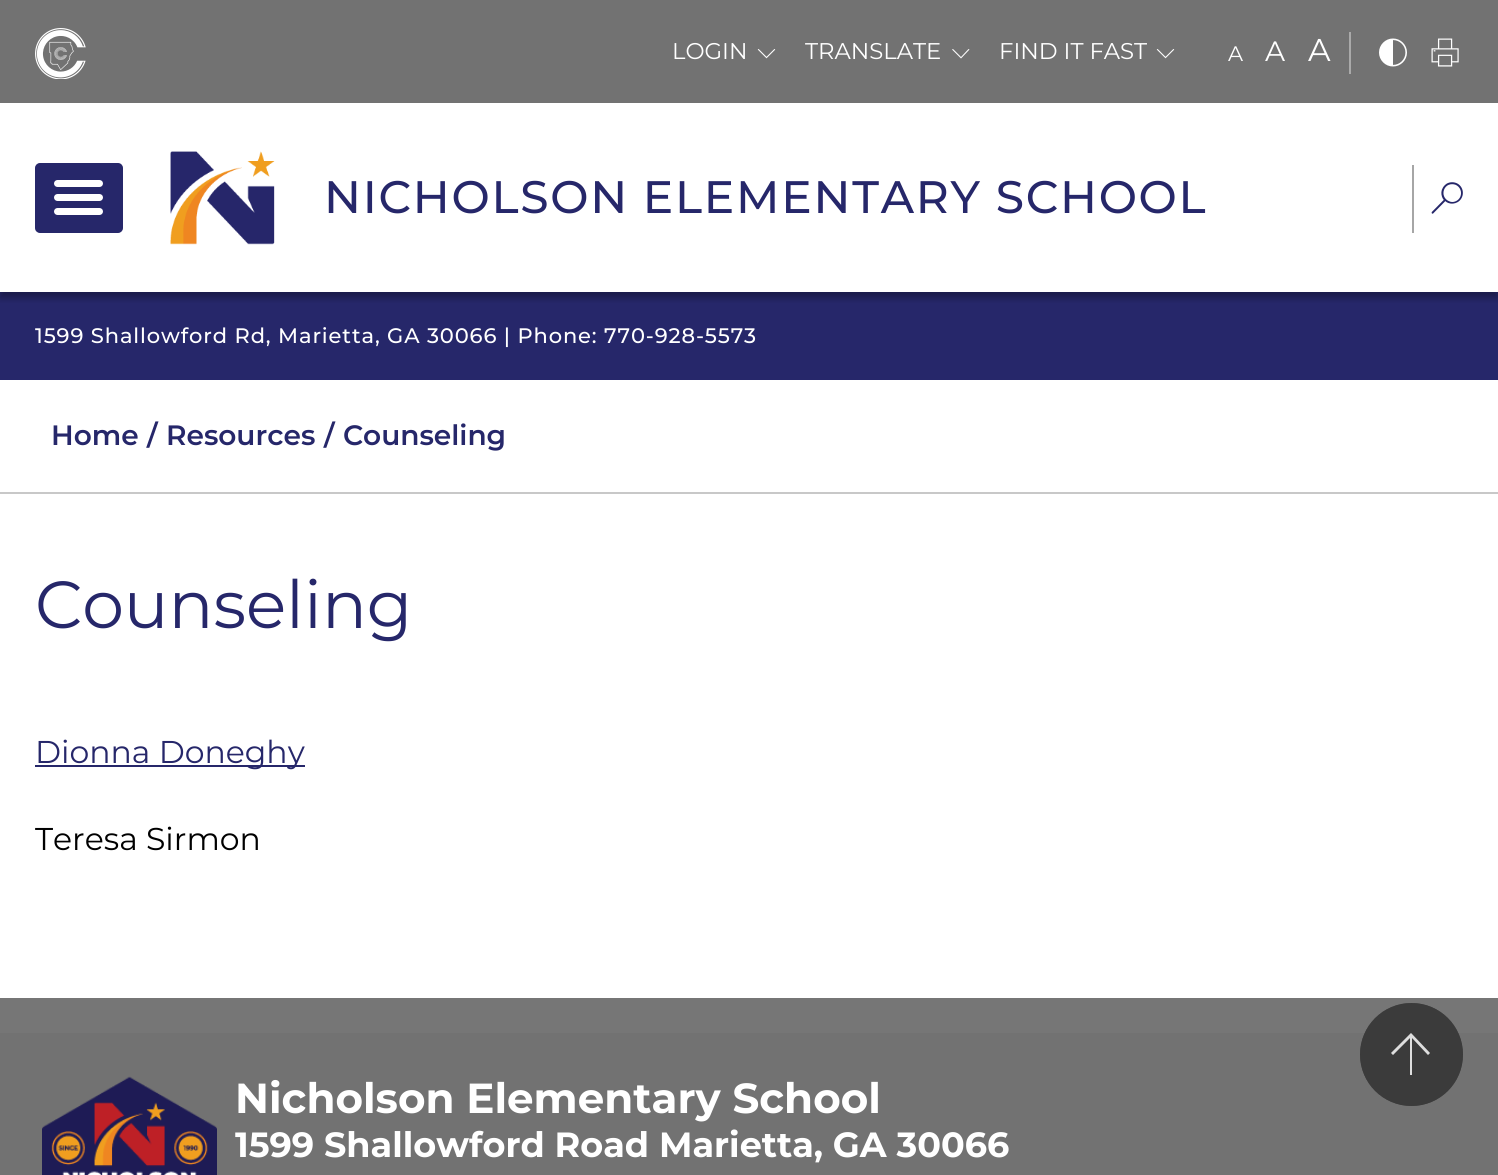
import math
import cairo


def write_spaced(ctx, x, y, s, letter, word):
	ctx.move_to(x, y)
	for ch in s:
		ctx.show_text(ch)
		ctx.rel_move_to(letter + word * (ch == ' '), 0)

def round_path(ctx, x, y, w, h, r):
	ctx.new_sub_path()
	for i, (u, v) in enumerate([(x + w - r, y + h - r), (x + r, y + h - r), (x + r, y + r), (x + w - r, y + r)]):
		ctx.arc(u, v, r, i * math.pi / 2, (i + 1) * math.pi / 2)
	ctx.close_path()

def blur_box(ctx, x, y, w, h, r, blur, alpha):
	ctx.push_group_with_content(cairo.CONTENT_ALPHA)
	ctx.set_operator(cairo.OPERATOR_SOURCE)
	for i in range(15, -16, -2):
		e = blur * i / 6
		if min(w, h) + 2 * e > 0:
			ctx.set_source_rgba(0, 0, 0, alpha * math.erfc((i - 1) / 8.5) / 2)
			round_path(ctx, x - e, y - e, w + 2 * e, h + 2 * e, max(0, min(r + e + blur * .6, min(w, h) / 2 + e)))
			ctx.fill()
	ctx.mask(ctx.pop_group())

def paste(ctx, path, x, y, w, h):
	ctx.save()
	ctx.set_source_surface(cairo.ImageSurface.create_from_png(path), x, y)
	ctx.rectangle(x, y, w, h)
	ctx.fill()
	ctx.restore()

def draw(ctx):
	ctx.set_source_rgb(0.463, 0.463, 0.463)
	ctx.paint()
	ctx.set_source_rgb(0.447, 0.447, 0.447)
	ctx.rectangle(0, 0, 1498, 103)
	ctx.fill()
	paste(ctx, 'media/1.png', 35, 28, 51, 51)
	ctx.select_font_face('Montserrat')
	ctx.set_font_size(22.75)
	ctx.set_source_rgb(1, 1, 1)
	ctx.move_to(672, 59)
	ctx.show_text('LOGIN')
	paste(ctx, 'media/2.png', 757, 49, 19, 10)
	ctx.move_to(805, 59)
	ctx.show_text('TRANSLATE')
	ctx.new_path()
	ctx.move_to(953, 49)
	ctx.line_to(961, 57)
	ctx.line_to(968.5, 49)
	ctx.line_to(969.5, 49.5)
	ctx.line_to(961, 58.5)
	ctx.line_to(952, 49.5)
	ctx.close_path()
	ctx.fill()
	ctx.move_to(999, 59)
	ctx.show_text('FIND IT FAST')
	paste(ctx, 'media/2.png', 1156, 49, 19, 10)
	ctx.set_font_size(21)
	ctx.move_to(1228, 61)
	ctx.show_text('A')
	ctx.set_font_size(28)
	ctx.move_to(1265, 61)
	ctx.show_text('A')
	ctx.set_font_size(31.5)
	ctx.move_to(1308, 61)
	ctx.show_text('A')
	ctx.set_source_rgb(0.667, 0.667, 0.667)
	ctx.rectangle(1349, 32, 2, 42)
	ctx.fill()
	paste(ctx, 'media/3.png', 1379, 38, 28, 29)
	paste(ctx, 'media/4.png', 1431, 38, 28, 29)
	ctx.set_source_rgb(1, 1, 1)
	ctx.rectangle(0, 103, 1498, 895)
	ctx.fill()
	ctx.set_source_rgb(0.149, 0.153, 0.416)
	ctx.rectangle(0, 292, 1498, 88)
	ctx.fill()
	ctx.save()
	ctx.rectangle(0, 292, 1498, 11)
	ctx.clip()
	ctx.set_source_rgb(0, 0, 0)
	blur_box(ctx, 0, 109, 1498, 189, 0, 3.5, 0.3)
	ctx.restore()
	round_path(ctx, 36, 164, 86, 68, 4)
	ctx.fill_preserve()
	ctx.stroke()
	ctx.set_source_rgb(1, 1, 1)
	round_path(ctx, 54, 180, 49, 7, 3.5)
	ctx.fill()
	round_path(ctx, 54, 194, 49, 7, 3.5)
	ctx.fill()
	round_path(ctx, 54, 208, 49, 7, 3.5)
	ctx.fill()
	paste(ctx, 'media/5.png', 170, 151, 105, 94)
	ctx.select_font_face('Montserrat Medium')
	ctx.set_font_size(45.5)
	ctx.set_source_rgb(0.149, 0.153, 0.416)
	write_spaced(ctx, 324, 213, 'NICHOLSON ELEMENTARY SCHOOL', 1.75, 0)
	ctx.set_source_rgb(0.651, 0.651, 0.651)
	ctx.rectangle(1412, 165, 2, 68)
	ctx.fill()
	paste(ctx, 'media/6.png', 1431, 182, 32, 32)
	ctx.set_font_size(21)
	ctx.set_source_rgb(1, 1, 1)
	write_spaced(ctx, 35, 343, '1599 Shallowford Rd, Marietta, GA 30066 | Phone: 770-928-5573', 0.88, 0)
	ctx.set_source_rgb(0.784, 0.784, 0.784)
	ctx.rectangle(0, 492, 1498, 2)
	ctx.fill()
	ctx.select_font_face('Montserrat SemiBold')
	ctx.set_font_size(28)
	ctx.set_source_rgb(0.149, 0.153, 0.416)
	for x, y, s in [
		(51, 445, 'Home'),
		(147, 445, '/'),
		(166, 445, 'Resources'),
		(324, 445, '/'),
		(343, 445, 'Counseling'),
	]:
		ctx.move_to(x, y)
		ctx.show_text(s)
	ctx.select_font_face('Montserrat')
	ctx.set_font_size(66.5)
	ctx.move_to(35, 628)
	ctx.show_text('Counseling')
	ctx.rectangle(35, 765, 270, 2)
	ctx.fill()
	ctx.set_font_size(31.5)
	ctx.move_to(35, 763)
	ctx.show_text('Dionna Doneghy')
	ctx.set_source_rgb(0, 0, 0)
	ctx.move_to(35, 850)
	ctx.show_text('Teresa Sirmon')
	ctx.set_source_rgb(0.447, 0.447, 0.447)
	ctx.rectangle(0, 1033, 1498, 142)
	ctx.fill()
	ctx.set_source_rgba(0.224, 0.22, 0.22, 0.8)
	ctx.arc(1411.5, 1054.5, 51.5, 0, 2 * math.pi)
	ctx.fill()
	ctx.set_source_rgb(0.89, 0.89, 0.89)
	ctx.new_path()
	ctx.move_to(1411, 1033)
	ctx.line_to(1430, 1053)
	ctx.line_to(1428, 1055)
	ctx.line_to(1412, 1038)
	ctx.line_to(1412, 1075)
	ctx.line_to(1410, 1075)
	ctx.line_to(1410, 1038)
	ctx.line_to(1393, 1055)
	ctx.line_to(1391, 1053)
	ctx.close_path()
	ctx.fill()
	ctx.set_source_rgba(0.224, 0.22, 0.22, 0.8)
	ctx.arc(1411.5, 1054.5, 51.5, 0, 2 * math.pi)
	ctx.fill()
	ctx.set_source_rgba(1, 1, 1, 0.8)
	ctx.new_path()
	ctx.move_to(1411, 1033)
	ctx.line_to(1430, 1053)
	ctx.line_to(1428, 1055)
	ctx.line_to(1412, 1038)
	ctx.line_to(1412, 1075)
	ctx.line_to(1410, 1075)
	ctx.line_to(1410, 1038)
	ctx.line_to(1393, 1055)
	ctx.line_to(1391, 1053)
	ctx.close_path()
	ctx.fill()
	paste(ctx, 'media/7.png', 42, 1076, 175, 99)
	ctx.select_font_face('Montserrat', cairo.FONT_SLANT_NORMAL, cairo.FONT_WEIGHT_BOLD)
	ctx.set_font_size(42)
	ctx.set_source_rgb(1, 1, 1)
	ctx.move_to(235, 1113)
	ctx.show_text('Nicholson Elementary School')
	ctx.set_font_size(35)
	ctx.move_to(235, 1157)
	ctx.show_text('1599 Shallowford Road Marietta, GA 30066')


surface = cairo.ImageSurface(cairo.FORMAT_RGB24, 1498, 1175)
ctx = cairo.Context(surface)
options = cairo.FontOptions()
options.set_hint_metrics(cairo.HINT_METRICS_OFF)
options.set_hint_style(cairo.HINT_STYLE_NONE)
ctx.set_font_options(options)
ctx.set_miter_limit(4)
draw(ctx)
surface.write_to_png('image.png')
